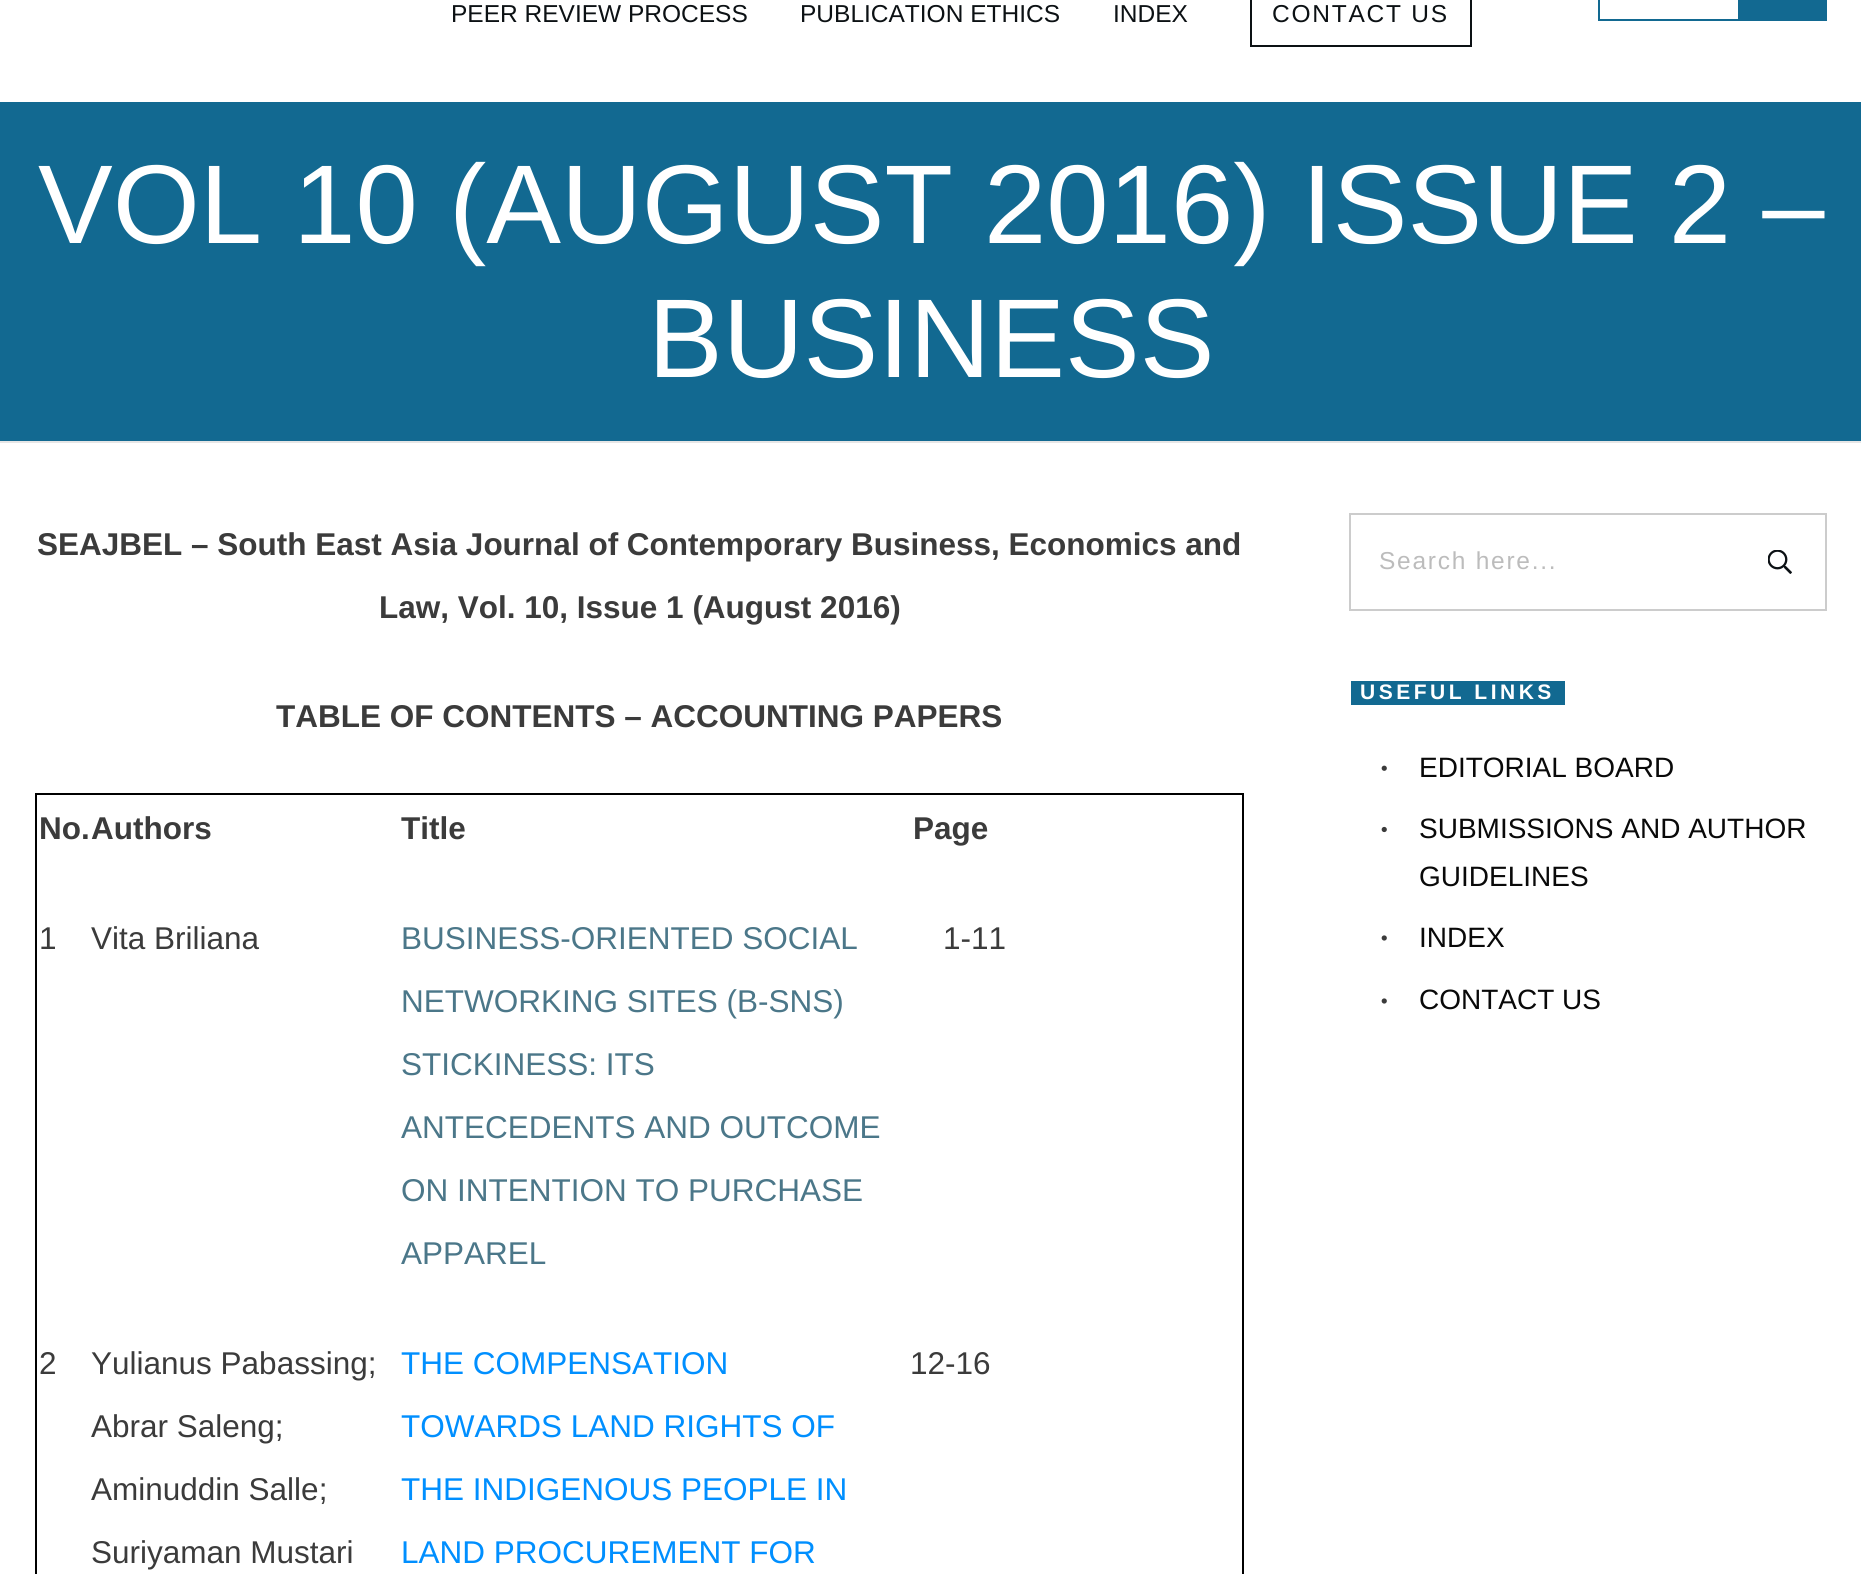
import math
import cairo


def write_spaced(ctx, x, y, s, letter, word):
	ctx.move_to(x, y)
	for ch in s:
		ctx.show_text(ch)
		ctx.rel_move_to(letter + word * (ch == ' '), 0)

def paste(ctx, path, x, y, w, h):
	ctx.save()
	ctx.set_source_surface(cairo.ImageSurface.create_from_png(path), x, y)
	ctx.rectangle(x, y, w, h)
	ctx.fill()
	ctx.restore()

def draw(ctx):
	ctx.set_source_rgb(1, 1, 1)
	ctx.paint()
	ctx.select_font_face('Liberation Sans')
	ctx.set_font_size(24.5)
	ctx.set_source_rgb(0.047, 0.067, 0.082)
	for x, y, s in [
		(451, 22, 'PEER REVIEW PROCESS'),
		(800, 22, 'PUBLICATION ETHICS'),
		(1113, 22, 'INDEX'),
	]:
		ctx.move_to(x, y)
		ctx.show_text(s)
	ctx.rectangle(1251, -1, 220, 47)
	ctx.stroke()
	write_spaced(ctx, 1272, 22, 'CONTACT US', 1.75, 0)
	ctx.rectangle(1599, -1, 140, 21)
	ctx.set_source_rgb(0.071, 0.412, 0.569)
	ctx.stroke()
	ctx.rectangle(1740, 0, 87, 21)
	ctx.rectangle(0, 102, 1861, 339)
	ctx.fill()
	ctx.set_source_rgb(0.902, 0.902, 0.902)
	ctx.rectangle(0, 441, 1861, 2)
	ctx.fill()
	ctx.set_font_size(112)
	ctx.set_source_rgb(1, 1, 1)
	ctx.move_to(38, 243)
	ctx.show_text('VOL 10 (AUGUST 2016) ISSUE 2 –')
	ctx.move_to(648, 377)
	ctx.show_text('BUSINESS')
	ctx.select_font_face('Liberation Sans', cairo.FONT_SLANT_NORMAL, cairo.FONT_WEIGHT_BOLD)
	ctx.set_font_size(31.5)
	ctx.set_source_rgb(0.231, 0.231, 0.231)
	for x, y, s in [
		(37, 555, 'SEAJBEL – South East Asia Journal of Contemporary Business, Economics and'),
		(379, 618, 'Law, Vol. 10, Issue 1 (August 2016)'),
		(276, 727, 'TABLE OF CONTENTS – ACCOUNTING PAPERS'),
	]:
		ctx.move_to(x, y)
		ctx.show_text(s)
	ctx.rectangle(36, 794, 1207, 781)
	ctx.set_source_rgb(0, 0, 0)
	ctx.stroke()
	ctx.set_source_rgb(0.231, 0.231, 0.231)
	for x, y, s in [
		(39, 839, 'No.'),
		(91, 839, 'Authors'),
		(401, 839, 'Title'),
		(913, 839, 'Page'),
	]:
		ctx.move_to(x, y)
		ctx.show_text(s)
	ctx.select_font_face('Liberation Sans')
	ctx.move_to(39, 949)
	ctx.show_text('1')
	ctx.move_to(91, 949)
	ctx.show_text('Vita Briliana')
	ctx.set_source_rgb(0.294, 0.467, 0.537)
	for x, y, s in [
		(401, 949, 'BUSINESS-ORIENTED SOCIAL'),
		(401, 1012, 'NETWORKING SITES (B-SNS)'),
		(401, 1075, 'STICKINESS: ITS'),
		(401, 1138, 'ANTECEDENTS AND OUTCOME'),
		(401, 1201, 'ON INTENTION TO PURCHASE'),
		(401, 1264, 'APPAREL'),
	]:
		ctx.move_to(x, y)
		ctx.show_text(s)
	ctx.set_source_rgb(0.231, 0.231, 0.231)
	for x, y, s in [
		(943, 949, '1-11'),
		(39, 1374, '2'),
		(91, 1374, 'Yulianus Pabassing;'),
		(91, 1437, 'Abrar Saleng;'),
		(91, 1500, 'Aminuddin Salle;'),
		(91, 1563, 'Suriyaman Mustari'),
	]:
		ctx.move_to(x, y)
		ctx.show_text(s)
	ctx.set_source_rgb(0, 0.561, 1)
	for x, y, s in [
		(401, 1374, 'THE COMPENSATION'),
		(401, 1437, 'TOWARDS LAND RIGHTS OF'),
		(401, 1500, 'THE INDIGENOUS PEOPLE IN'),
		(401, 1563, 'LAND PROCUREMENT FOR'),
	]:
		ctx.move_to(x, y)
		ctx.show_text(s)
	ctx.set_source_rgb(0.231, 0.231, 0.231)
	ctx.move_to(910, 1374)
	ctx.show_text('12-16')
	ctx.rectangle(1350, 514, 476, 96)
	ctx.set_source_rgb(0.8, 0.8, 0.8)
	ctx.stroke()
	ctx.set_font_size(24.5)
	ctx.set_source_rgb(0.737, 0.737, 0.737)
	write_spaced(ctx, 1379, 569, 'Search here...', 1.75, 0)
	paste(ctx, 'media/1.png', 1768, 550, 24, 24)
	ctx.set_source_rgb(0.071, 0.412, 0.569)
	ctx.rectangle(1351, 681, 214, 24)
	ctx.fill()
	ctx.select_font_face('Liberation Sans', cairo.FONT_SLANT_NORMAL, cairo.FONT_WEIGHT_BOLD)
	ctx.set_font_size(21)
	ctx.set_source_rgb(1, 1, 1)
	write_spaced(ctx, 1360, 699, 'USEFUL LINKS', 3.5, 0)
	paste(ctx, 'media/2.png', 1381, 765, 6, 6)
	ctx.select_font_face('Liberation Sans')
	ctx.set_font_size(28)
	ctx.set_source_rgb(0.039, 0.039, 0.039)
	ctx.move_to(1419, 777)
	ctx.show_text('EDITORIAL BOARD')
	paste(ctx, 'media/3.png', 1381, 826, 6, 7)
	ctx.move_to(1419, 838)
	ctx.show_text('SUBMISSIONS AND AUTHOR')
	ctx.move_to(1419, 886)
	ctx.show_text('GUIDELINES')
	paste(ctx, 'media/4.png', 1381, 935, 6, 6)
	ctx.move_to(1419, 947)
	ctx.show_text('INDEX')
	paste(ctx, 'media/4.png', 1381, 998, 6, 6)
	ctx.move_to(1419, 1009)
	ctx.show_text('CONTACT US')


surface = cairo.ImageSurface(cairo.FORMAT_RGB24, 1861, 1574)
ctx = cairo.Context(surface)
options = cairo.FontOptions()
options.set_hint_metrics(cairo.HINT_METRICS_OFF)
options.set_hint_style(cairo.HINT_STYLE_NONE)
ctx.set_font_options(options)
ctx.set_miter_limit(4)
draw(ctx)
surface.write_to_png('image.png')
